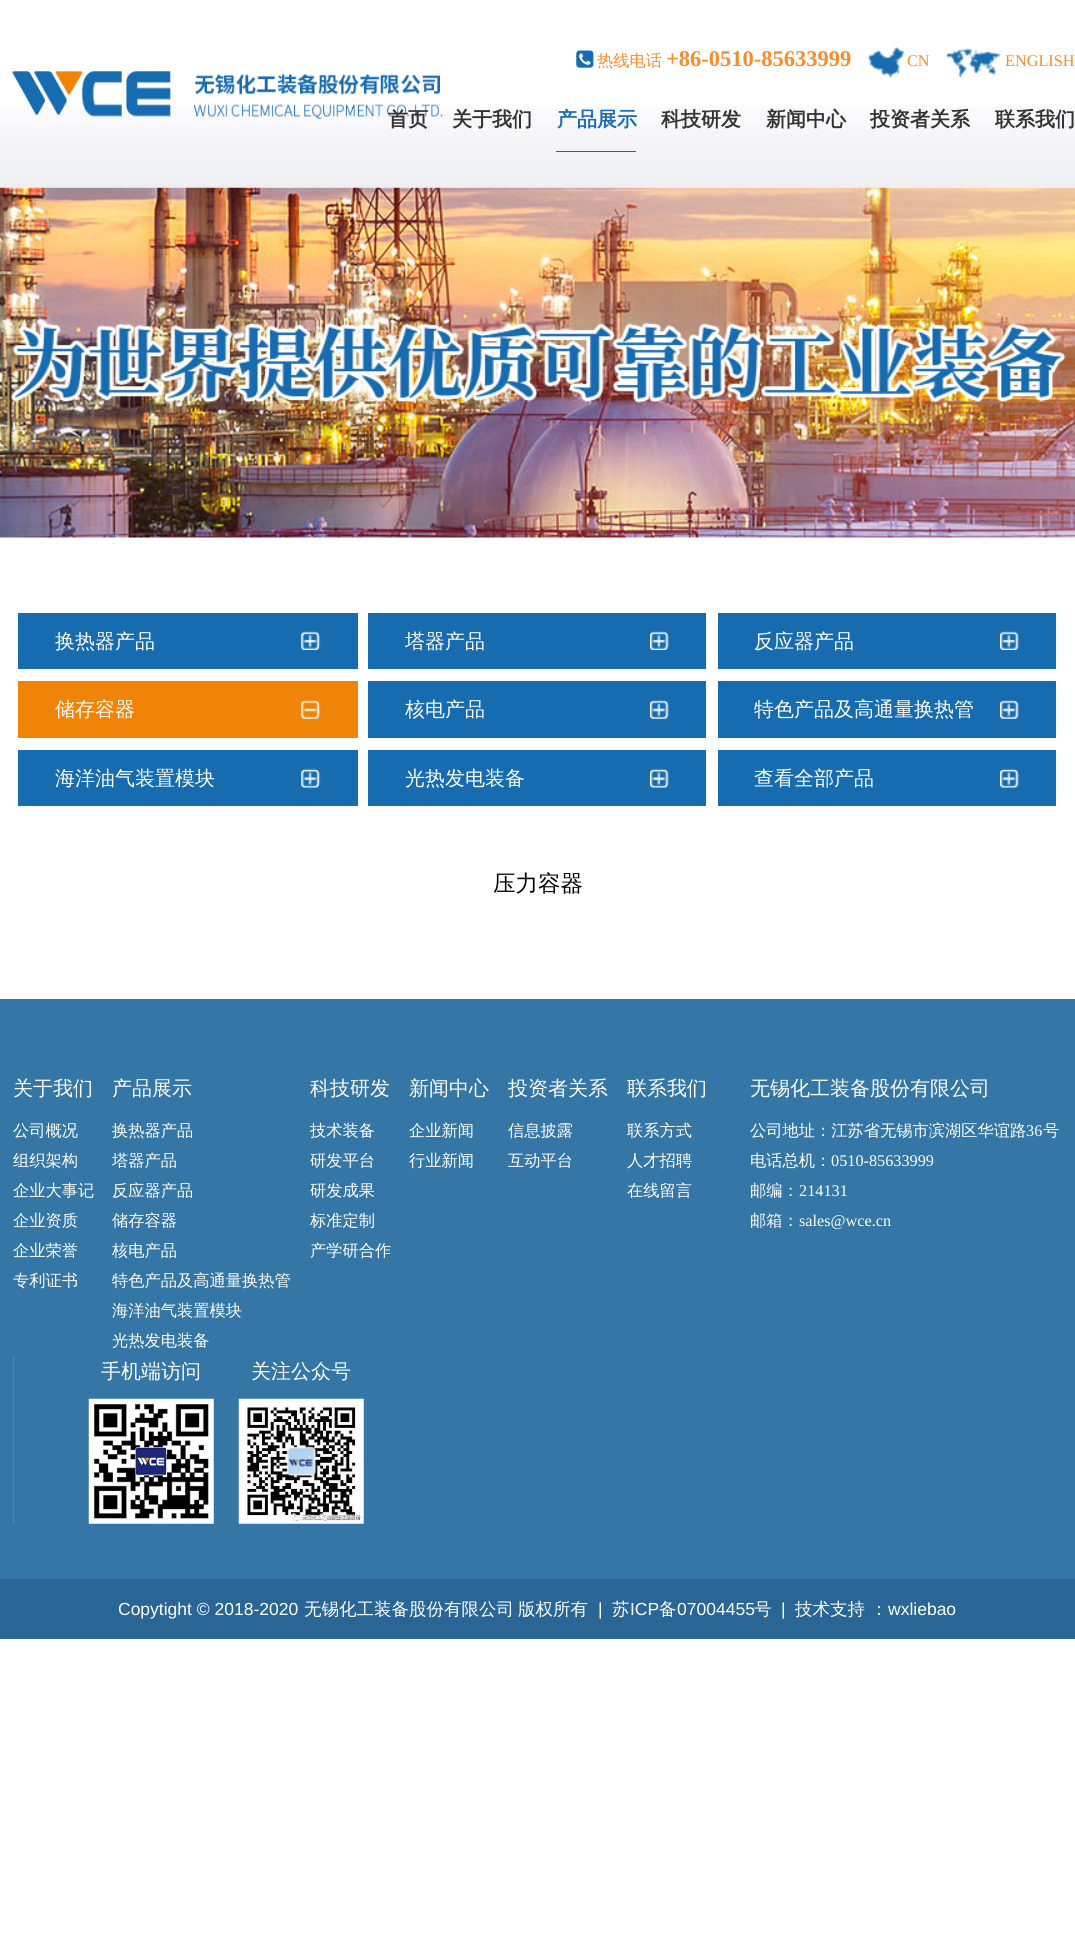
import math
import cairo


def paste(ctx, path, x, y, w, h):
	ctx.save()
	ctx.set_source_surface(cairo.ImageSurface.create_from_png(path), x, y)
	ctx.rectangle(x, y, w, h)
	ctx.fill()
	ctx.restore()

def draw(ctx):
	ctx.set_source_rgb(1, 1, 1)
	ctx.paint()
	paste(ctx, 'media/6.png', 0, 187, 1075, 351)
	paste(ctx, 'media/1.png', 0, 106, 1075, 82)
	paste(ctx, 'media/2.png', 576, 50, 18, 18)
	ctx.select_font_face('WenQuanYi Zen Hei Medium')
	ctx.set_font_size(16.25)
	ctx.set_source_rgb(0.961, 0.549, 0.173)
	ctx.move_to(597, 66)
	ctx.show_text('热线电话')
	ctx.select_font_face('Liberation Serif', cairo.FONT_SLANT_NORMAL, cairo.FONT_WEIGHT_BOLD)
	ctx.set_font_size(22.5)
	ctx.move_to(666, 66)
	ctx.show_text('+86-0510-85633999')
	paste(ctx, 'media/3.png', 868, 47, 37, 31)
	ctx.select_font_face('Liberation Serif')
	ctx.set_font_size(16.25)
	ctx.move_to(907, 66)
	ctx.show_text('CN')
	paste(ctx, 'media/4.png', 945, 48, 56, 30)
	ctx.move_to(1005, 66)
	ctx.show_text('ENGLISH')
	paste(ctx, 'media/5.png', 12, 71, 431, 48)
	ctx.select_font_face('WenQuanYi Zen Hei', cairo.FONT_SLANT_NORMAL, cairo.FONT_WEIGHT_BOLD)
	ctx.set_font_size(20)
	ctx.set_source_rgb(0.2, 0.2, 0.2)
	ctx.move_to(388, 126)
	ctx.show_text('首页')
	ctx.move_to(452, 126)
	ctx.show_text('关于我们')
	ctx.set_source_rgb(0.09, 0.424, 0.69)
	ctx.rectangle(556, 151, 80, 1)
	ctx.fill()
	ctx.move_to(557, 126)
	ctx.show_text('产品展示')
	ctx.set_source_rgb(0.2, 0.2, 0.2)
	for x, y, s in [
		(661, 126, '科技研发'),
		(766, 126, '新闻中心'),
		(870, 126, '投资者关系'),
		(995, 126, '联系我们'),
	]:
		ctx.move_to(x, y)
		ctx.show_text(s)
	ctx.set_source_rgb(0.09, 0.424, 0.69)
	ctx.rectangle(18, 613, 340, 56)
	ctx.fill()
	paste(ctx, 'media/7.png', 301, 631, 20, 19)
	ctx.select_font_face('WenQuanYi Zen Hei Medium')
	ctx.set_source_rgb(1, 1, 1)
	ctx.move_to(55, 648)
	ctx.show_text('换热器产品')
	ctx.set_source_rgb(0.09, 0.424, 0.69)
	ctx.rectangle(368, 613, 338, 56)
	ctx.fill()
	paste(ctx, 'media/8.png', 650, 631, 19, 19)
	ctx.set_source_rgb(1, 1, 1)
	ctx.move_to(405, 648)
	ctx.show_text('塔器产品')
	ctx.set_source_rgb(0.09, 0.424, 0.69)
	ctx.rectangle(718, 613, 338, 56)
	ctx.fill()
	paste(ctx, 'media/9.png', 1000, 631, 19, 19)
	ctx.set_source_rgb(1, 1, 1)
	ctx.move_to(754, 648)
	ctx.show_text('反应器产品')
	ctx.set_source_rgb(0.937, 0.518, 0.035)
	ctx.rectangle(18, 681, 340, 57)
	ctx.fill()
	paste(ctx, 'media/10.png', 301, 700, 20, 19)
	ctx.set_source_rgb(1, 1, 1)
	ctx.move_to(55, 716)
	ctx.show_text('储存容器')
	ctx.set_source_rgb(0.09, 0.424, 0.69)
	ctx.rectangle(368, 681, 338, 57)
	ctx.fill()
	paste(ctx, 'media/11.png', 650, 700, 19, 19)
	ctx.set_source_rgb(1, 1, 1)
	ctx.move_to(405, 716)
	ctx.show_text('核电产品')
	ctx.set_source_rgb(0.09, 0.424, 0.69)
	ctx.rectangle(718, 681, 338, 57)
	ctx.fill()
	paste(ctx, 'media/12.png', 1000, 700, 19, 19)
	ctx.set_source_rgb(1, 1, 1)
	ctx.move_to(754, 716)
	ctx.show_text('特色产品及高通量换热管')
	ctx.set_source_rgb(0.09, 0.424, 0.69)
	ctx.rectangle(18, 750, 340, 56)
	ctx.fill()
	paste(ctx, 'media/13.png', 301, 768, 20, 20)
	ctx.set_source_rgb(1, 1, 1)
	ctx.move_to(55, 785)
	ctx.show_text('海洋油气装置模块')
	ctx.set_source_rgb(0.09, 0.424, 0.69)
	ctx.rectangle(368, 750, 338, 56)
	ctx.fill()
	paste(ctx, 'media/14.png', 650, 768, 19, 20)
	ctx.set_source_rgb(1, 1, 1)
	ctx.move_to(405, 785)
	ctx.show_text('光热发电装备')
	ctx.set_source_rgb(0.09, 0.424, 0.69)
	ctx.rectangle(718, 750, 338, 56)
	ctx.fill()
	paste(ctx, 'media/15.png', 1000, 768, 19, 20)
	ctx.set_source_rgb(1, 1, 1)
	ctx.move_to(754, 785)
	ctx.show_text('查看全部产品')
	ctx.set_font_size(22.5)
	ctx.set_source_rgb(0, 0, 0)
	ctx.move_to(493, 891)
	ctx.show_text('压力容器')
	ctx.set_source_rgb(0.204, 0.463, 0.647)
	ctx.rectangle(0, 999, 1075, 580)
	ctx.fill()
	ctx.set_font_size(20)
	ctx.set_source_rgb(1, 1, 1)
	ctx.move_to(13, 1095)
	ctx.show_text('关于我们')
	ctx.set_font_size(16.25)
	for x, y, s in [
		(13, 1136, '公司概况'),
		(13, 1166, '组织架构'),
		(13, 1196, '企业大事记'),
		(13, 1226, '企业资质'),
		(13, 1256, '企业荣誉'),
		(13, 1286, '专利证书'),
	]:
		ctx.move_to(x, y)
		ctx.show_text(s)
	ctx.set_font_size(20)
	ctx.move_to(112, 1095)
	ctx.show_text('产品展示')
	ctx.set_font_size(16.25)
	for x, y, s in [
		(112, 1136, '换热器产品'),
		(112, 1166, '塔器产品'),
		(112, 1196, '反应器产品'),
		(112, 1226, '储存容器'),
		(112, 1256, '核电产品'),
		(112, 1286, '特色产品及高通量换热管'),
		(112, 1316, '海洋油气装置模块'),
		(112, 1346, '光热发电装备'),
	]:
		ctx.move_to(x, y)
		ctx.show_text(s)
	ctx.set_font_size(20)
	ctx.move_to(310, 1095)
	ctx.show_text('科技研发')
	ctx.set_font_size(16.25)
	for x, y, s in [
		(310, 1136, '技术装备'),
		(310, 1166, '研发平台'),
		(310, 1196, '研发成果'),
		(310, 1226, '标准定制'),
		(310, 1256, '产学研合作'),
	]:
		ctx.move_to(x, y)
		ctx.show_text(s)
	ctx.set_font_size(20)
	ctx.move_to(409, 1095)
	ctx.show_text('新闻中心')
	ctx.set_font_size(16.25)
	ctx.move_to(409, 1136)
	ctx.show_text('企业新闻')
	ctx.move_to(409, 1166)
	ctx.show_text('行业新闻')
	ctx.set_font_size(20)
	ctx.move_to(508, 1095)
	ctx.show_text('投资者关系')
	ctx.set_font_size(16.25)
	ctx.move_to(508, 1136)
	ctx.show_text('信息披露')
	ctx.move_to(508, 1166)
	ctx.show_text('互动平台')
	ctx.set_font_size(20)
	ctx.move_to(627, 1095)
	ctx.show_text('联系我们')
	ctx.set_font_size(16.25)
	for x, y, s in [
		(627, 1136, '联系方式'),
		(627, 1166, '人才招聘'),
		(627, 1196, '在线留言'),
	]:
		ctx.move_to(x, y)
		ctx.show_text(s)
	ctx.set_font_size(20)
	ctx.move_to(750, 1095)
	ctx.show_text('无锡化工装备股份有限公司')
	ctx.set_font_size(16.25)
	ctx.move_to(750, 1136)
	ctx.show_text('公司地址：江苏省无锡市滨湖区华谊路')
	ctx.select_font_face('Liberation Serif')
	ctx.move_to(1026, 1136)
	ctx.show_text('36')
	ctx.select_font_face('WenQuanYi Zen Hei Medium')
	ctx.move_to(1043, 1136)
	ctx.show_text('号')
	ctx.move_to(750, 1166)
	ctx.show_text('电话总机：')
	ctx.select_font_face('Liberation Serif')
	ctx.move_to(831, 1166)
	ctx.show_text('0510-85633999')
	ctx.select_font_face('WenQuanYi Zen Hei Medium')
	ctx.move_to(750, 1196)
	ctx.show_text('邮编：')
	ctx.select_font_face('Liberation Serif')
	ctx.move_to(799, 1196)
	ctx.show_text('214131')
	ctx.select_font_face('WenQuanYi Zen Hei Medium')
	ctx.move_to(750, 1226)
	ctx.show_text('邮箱：')
	ctx.select_font_face('Liberation Serif')
	ctx.move_to(799, 1226)
	ctx.show_text('sales@wce.cn')
	ctx.set_source_rgb(0.267, 0.549, 0.749)
	ctx.rectangle(13, 1356, 1, 168)
	ctx.fill()
	ctx.select_font_face('WenQuanYi Zen Hei Medium')
	ctx.set_font_size(20)
	ctx.set_source_rgb(1, 1, 1)
	ctx.move_to(101, 1378)
	ctx.show_text('手机端访问')
	paste(ctx, 'media/16.png', 88, 1398, 126, 126)
	ctx.move_to(251, 1378)
	ctx.show_text('关注公众号')
	paste(ctx, 'media/17.png', 238, 1398, 126, 126)
	ctx.set_source_rgb(0.161, 0.4, 0.584)
	ctx.rectangle(0, 1579, 1075, 60)
	ctx.fill()
	ctx.select_font_face('Liberation Sans')
	ctx.set_font_size(17.5)
	ctx.set_source_rgb(1, 1, 1)
	ctx.move_to(118, 1615)
	ctx.show_text('Copytight © 2018-2020')
	ctx.select_font_face('WenQuanYi Zen Hei Medium')
	ctx.move_to(304, 1615)
	ctx.show_text('无锡化工装备股份有限公司')
	ctx.move_to(518, 1615)
	ctx.show_text('版权所有')
	ctx.select_font_face('Liberation Sans')
	ctx.move_to(598, 1615)
	ctx.show_text('|')
	ctx.select_font_face('WenQuanYi Zen Hei Medium')
	ctx.move_to(612, 1615)
	ctx.show_text('苏')
	ctx.select_font_face('Liberation Sans')
	ctx.move_to(630, 1615)
	ctx.show_text('ICP')
	ctx.select_font_face('WenQuanYi Zen Hei Medium')
	ctx.move_to(659, 1615)
	ctx.show_text('备')
	ctx.select_font_face('Liberation Sans')
	ctx.move_to(677, 1615)
	ctx.show_text('07004455')
	ctx.select_font_face('WenQuanYi Zen Hei Medium')
	ctx.move_to(754, 1615)
	ctx.show_text('号')
	ctx.select_font_face('Liberation Sans')
	ctx.move_to(781, 1615)
	ctx.show_text('|')
	ctx.select_font_face('WenQuanYi Zen Hei Medium')
	ctx.move_to(795, 1615)
	ctx.show_text('技术支持 ：')
	ctx.select_font_face('Liberation Sans')
	ctx.move_to(888, 1615)
	ctx.show_text('wxliebao')


surface = cairo.ImageSurface(cairo.FORMAT_RGB24, 1075, 1938)
ctx = cairo.Context(surface)
options = cairo.FontOptions()
options.set_hint_metrics(cairo.HINT_METRICS_OFF)
options.set_hint_style(cairo.HINT_STYLE_NONE)
ctx.set_font_options(options)
ctx.set_miter_limit(4)
draw(ctx)
surface.write_to_png('image.png')
